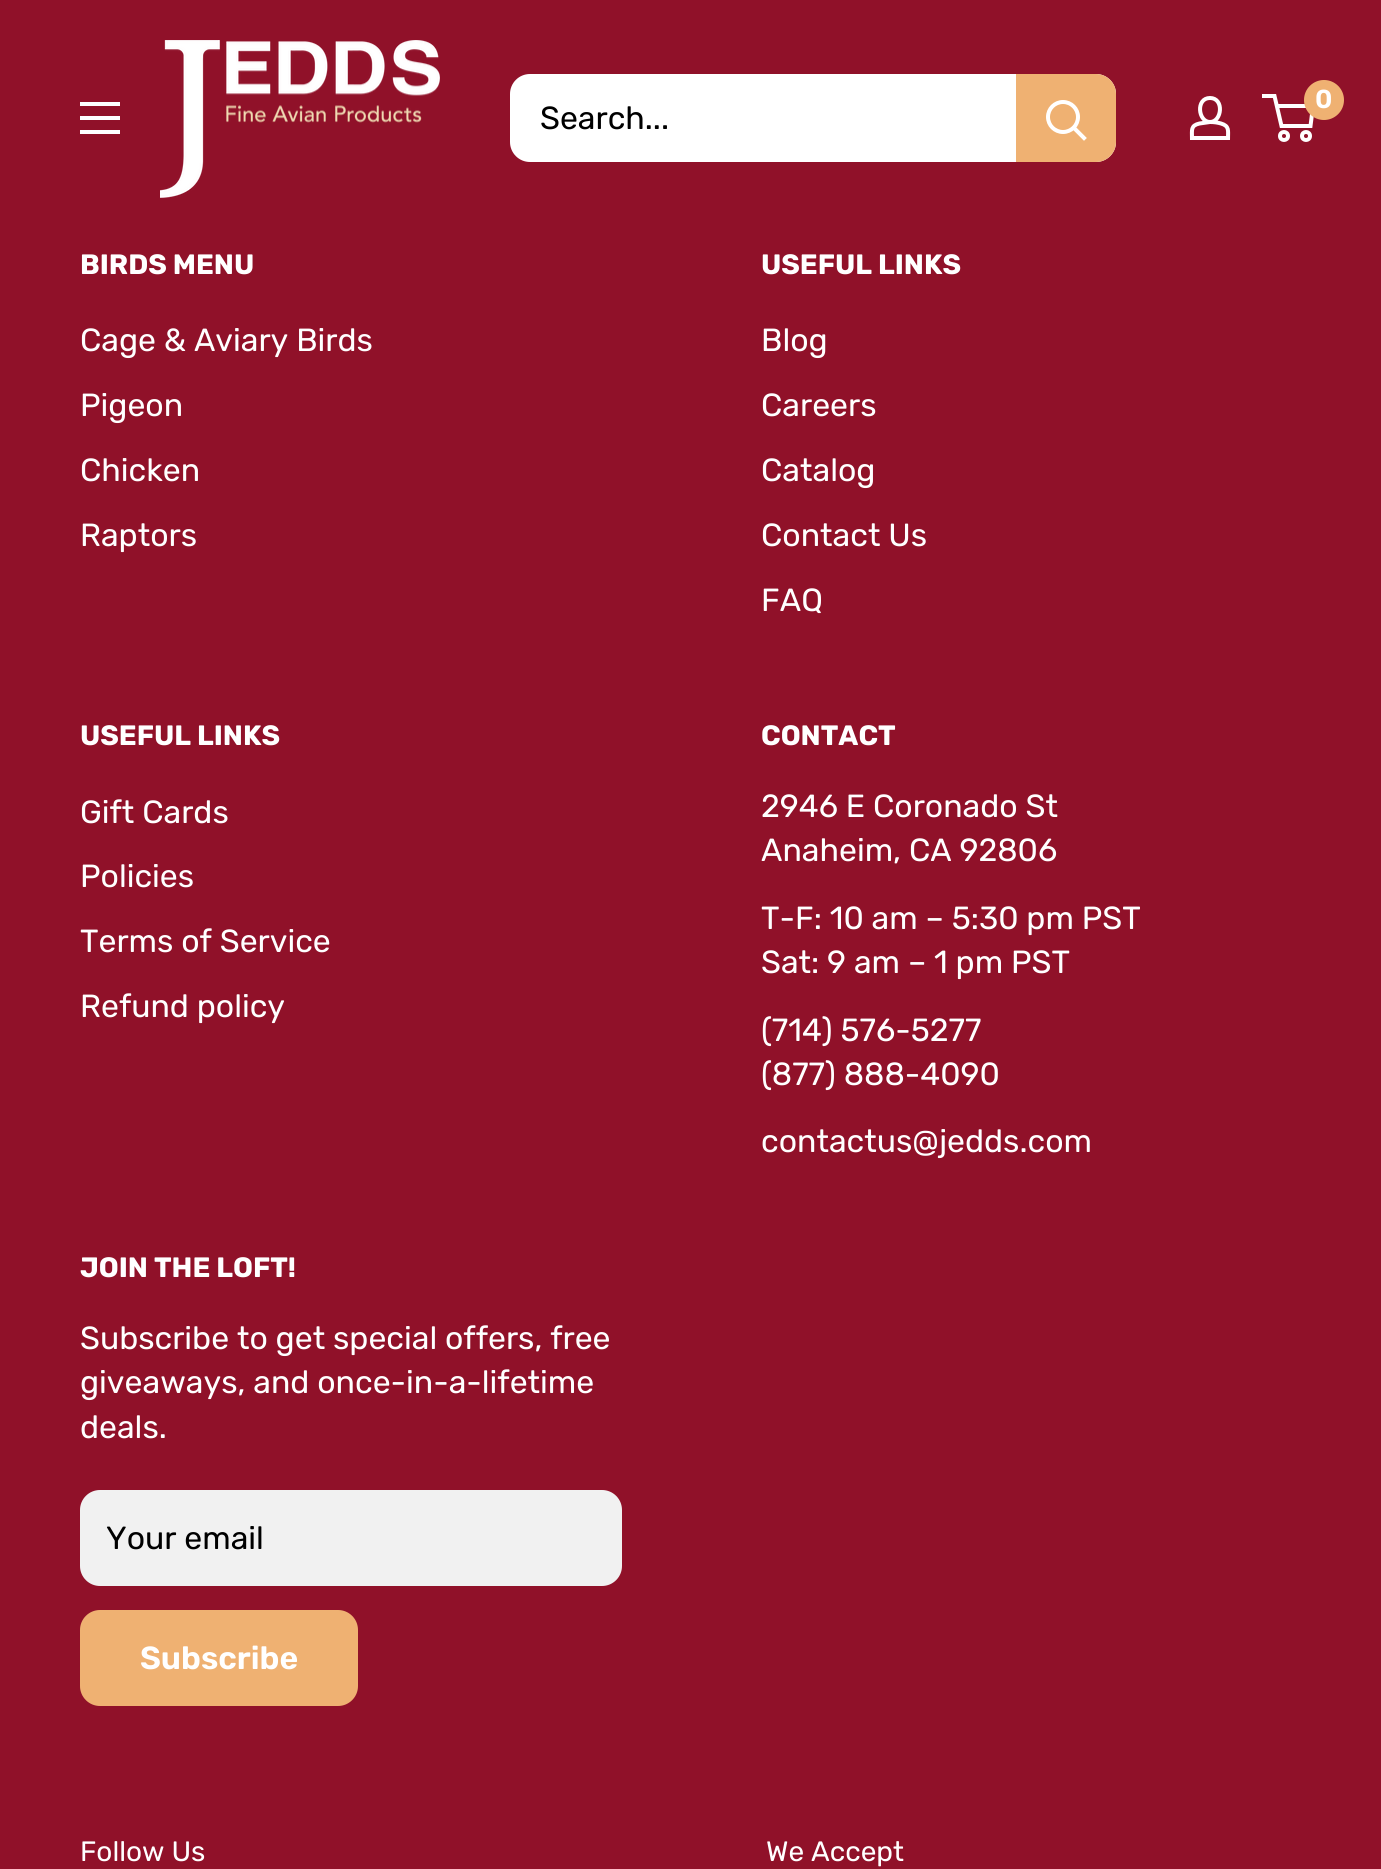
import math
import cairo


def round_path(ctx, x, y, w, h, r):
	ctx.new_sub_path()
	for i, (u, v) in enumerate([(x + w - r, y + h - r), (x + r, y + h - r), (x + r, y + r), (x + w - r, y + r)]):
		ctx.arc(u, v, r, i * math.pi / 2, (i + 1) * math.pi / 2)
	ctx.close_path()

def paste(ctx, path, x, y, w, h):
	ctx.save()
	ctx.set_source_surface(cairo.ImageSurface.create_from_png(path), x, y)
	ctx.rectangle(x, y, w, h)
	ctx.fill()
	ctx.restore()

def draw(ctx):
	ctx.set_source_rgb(0.565, 0.067, 0.161)
	ctx.paint()
	paste(ctx, 'media/1.png', 160, 40, 280, 158)
	ctx.new_path()
	ctx.move_to(1210, 122)
	ctx.curve_to(1214, 122, 1217.5, 122.5, 1221, 123.5)
	ctx.curve_to(1229.5, 126, 1228, 130.5, 1228, 138)
	ctx.line_to(1192, 138)
	ctx.curve_to(1192, 130, 1190.5, 125.5, 1199.5, 123.5)
	ctx.close_path()
	ctx.move_to(1210, 122)
	ctx.curve_to(1198, 122, 1195.5, 98, 1210, 98)
	ctx.curve_to(1224.5, 98, 1222, 122, 1210, 122)
	ctx.close_path()
	ctx.set_source_rgb(1, 1, 1)
	ctx.set_line_width(4)
	ctx.stroke()
	ctx.arc(1284, 136, 4, 0, 2 * math.pi)
	ctx.stroke()
	ctx.arc(1306, 136, 4, 0, 2 * math.pi)
	ctx.stroke()
	ctx.new_path()
	ctx.move_to(1276.5, 106)
	ctx.line_to(1313, 106)
	ctx.line_to(1310.5, 126)
	ctx.line_to(1281.5, 126)
	ctx.line_to(1274.5, 96)
	ctx.line_to(1262, 96)
	ctx.stroke()
	ctx.set_source_rgb(0.937, 0.694, 0.447)
	ctx.arc(1324, 100, 20, 0, 2 * math.pi)
	ctx.fill()
	ctx.select_font_face('Rubik SemiBold')
	ctx.set_font_size(26)
	ctx.set_source_rgb(1, 1, 1)
	ctx.move_to(1315, 108)
	ctx.show_text('0')
	ctx.set_fill_rule(cairo.FILL_RULE_EVEN_ODD)
	ctx.new_path()
	ctx.move_to(80, 130)
	ctx.line_to(120, 130)
	ctx.line_to(120, 134)
	ctx.line_to(80, 134)
	ctx.close_path()
	ctx.move_to(80, 102)
	ctx.line_to(120, 102)
	ctx.line_to(120, 106)
	ctx.line_to(80, 106)
	ctx.close_path()
	ctx.move_to(80, 116)
	ctx.line_to(120, 116)
	ctx.line_to(120, 120)
	ctx.line_to(80, 120)
	ctx.close_path()
	ctx.fill()
	round_path(ctx, 510, 74, 606, 88, 20)
	ctx.fill()
	ctx.select_font_face('Rubik')
	ctx.set_font_size(32)
	ctx.set_source_rgb(0, 0, 0)
	ctx.move_to(540, 129)
	ctx.show_text('Search...')
	ctx.set_source_rgb(0.937, 0.694, 0.447)
	ctx.new_path()
	ctx.move_to(1016, 74)
	ctx.line_to(1096, 74)
	ctx.curve_to(1107, 74, 1116, 83, 1116, 94)
	ctx.line_to(1116, 142)
	ctx.curve_to(1116, 153, 1107, 162, 1096, 162)
	ctx.line_to(1016, 162)
	ctx.close_path()
	ctx.fill()
	ctx.new_path()
	ctx.move_to(1084, 138)
	ctx.line_to(1074, 128)
	ctx.set_source_rgb(1, 1, 1)
	ctx.set_line_cap(cairo.LINE_CAP_SQUARE)
	ctx.stroke()
	ctx.arc(1063, 117, 15, 0, 2 * math.pi)
	ctx.set_line_cap(cairo.LINE_CAP_BUTT)
	ctx.stroke()
	ctx.select_font_face('Rubik', cairo.FONT_SLANT_NORMAL, cairo.FONT_WEIGHT_BOLD)
	ctx.set_font_size(28)
	ctx.move_to(80, 274)
	ctx.show_text('BIRDS MENU')
	ctx.select_font_face('Rubik')
	ctx.set_font_size(32)
	for x, y, s in [
		(80, 351, 'Cage & Aviary Birds'),
		(80, 416, 'Pigeon'),
		(80, 481, 'Chicken'),
		(80, 546, 'Raptors'),
	]:
		ctx.move_to(x, y)
		ctx.show_text(s)
	ctx.select_font_face('Rubik', cairo.FONT_SLANT_NORMAL, cairo.FONT_WEIGHT_BOLD)
	ctx.set_font_size(28)
	ctx.move_to(761, 274)
	ctx.show_text('USEFUL LINKS')
	ctx.select_font_face('Rubik')
	ctx.set_font_size(32)
	for x, y, s in [
		(761, 351, 'Blog'),
		(761, 416, 'Careers'),
		(761, 481, 'Catalog'),
		(761, 546, 'Contact Us'),
		(761, 611, 'FAQ'),
	]:
		ctx.move_to(x, y)
		ctx.show_text(s)
	ctx.select_font_face('Rubik', cairo.FONT_SLANT_NORMAL, cairo.FONT_WEIGHT_BOLD)
	ctx.set_font_size(28)
	ctx.move_to(80, 745)
	ctx.show_text('USEFUL LINKS')
	ctx.select_font_face('Rubik')
	ctx.set_font_size(32)
	for x, y, s in [
		(80, 823, 'Gift Cards'),
		(80, 887, 'Policies'),
		(80, 952, 'Terms of Service'),
		(80, 1017, 'Refund policy'),
	]:
		ctx.move_to(x, y)
		ctx.show_text(s)
	ctx.select_font_face('Rubik', cairo.FONT_SLANT_NORMAL, cairo.FONT_WEIGHT_BOLD)
	ctx.set_font_size(28)
	ctx.move_to(761, 745)
	ctx.show_text('CONTACT')
	ctx.select_font_face('Rubik')
	ctx.set_font_size(32)
	for x, y, s in [
		(761, 817, '2946 E Coronado St'),
		(761, 861, 'Anaheim, CA 92806'),
		(761, 929, 'T-F: 10 am – 5:30 pm PST'),
		(761, 973, 'Sat: 9 am – 1 pm PST'),
		(761, 1041, '(714) 576-5277'),
		(761, 1085, '(877) 888-4090'),
		(761, 1152, 'contactus@jedds.com'),
	]:
		ctx.move_to(x, y)
		ctx.show_text(s)
	ctx.select_font_face('Rubik', cairo.FONT_SLANT_NORMAL, cairo.FONT_WEIGHT_BOLD)
	ctx.set_font_size(28)
	ctx.move_to(80, 1277)
	ctx.show_text('JOIN THE LOFT!')
	ctx.select_font_face('Rubik')
	ctx.set_font_size(32)
	for x, y, s in [
		(80, 1349, 'Subscribe to get special offers, free'),
		(80, 1393, 'giveaways, and once-in-a-lifetime'),
		(80, 1438, 'deals.'),
	]:
		ctx.move_to(x, y)
		ctx.show_text(s)
	ctx.set_source_rgb(0.945, 0.945, 0.945)
	round_path(ctx, 80, 1490, 542, 96, 20)
	ctx.fill()
	ctx.set_source_rgb(0, 0, 0)
	ctx.move_to(106, 1549)
	ctx.show_text('Your email')
	ctx.set_source_rgb(0.937, 0.694, 0.447)
	round_path(ctx, 80, 1610, 278, 96, 20)
	ctx.fill()
	ctx.select_font_face('Rubik SemiBold')
	ctx.set_source_rgb(1, 1, 1)
	ctx.move_to(140, 1669)
	ctx.show_text('Subscribe')
	ctx.select_font_face('Rubik')
	ctx.set_font_size(28)
	ctx.move_to(80, 1861)
	ctx.show_text('Follow Us')
	ctx.move_to(766, 1861)
	ctx.show_text('We Accept')


surface = cairo.ImageSurface(cairo.FORMAT_RGB24, 1381, 1869)
ctx = cairo.Context(surface)
options = cairo.FontOptions()
options.set_hint_metrics(cairo.HINT_METRICS_OFF)
options.set_hint_style(cairo.HINT_STYLE_NONE)
ctx.set_font_options(options)
ctx.set_miter_limit(4)
draw(ctx)
surface.write_to_png('image.png')
